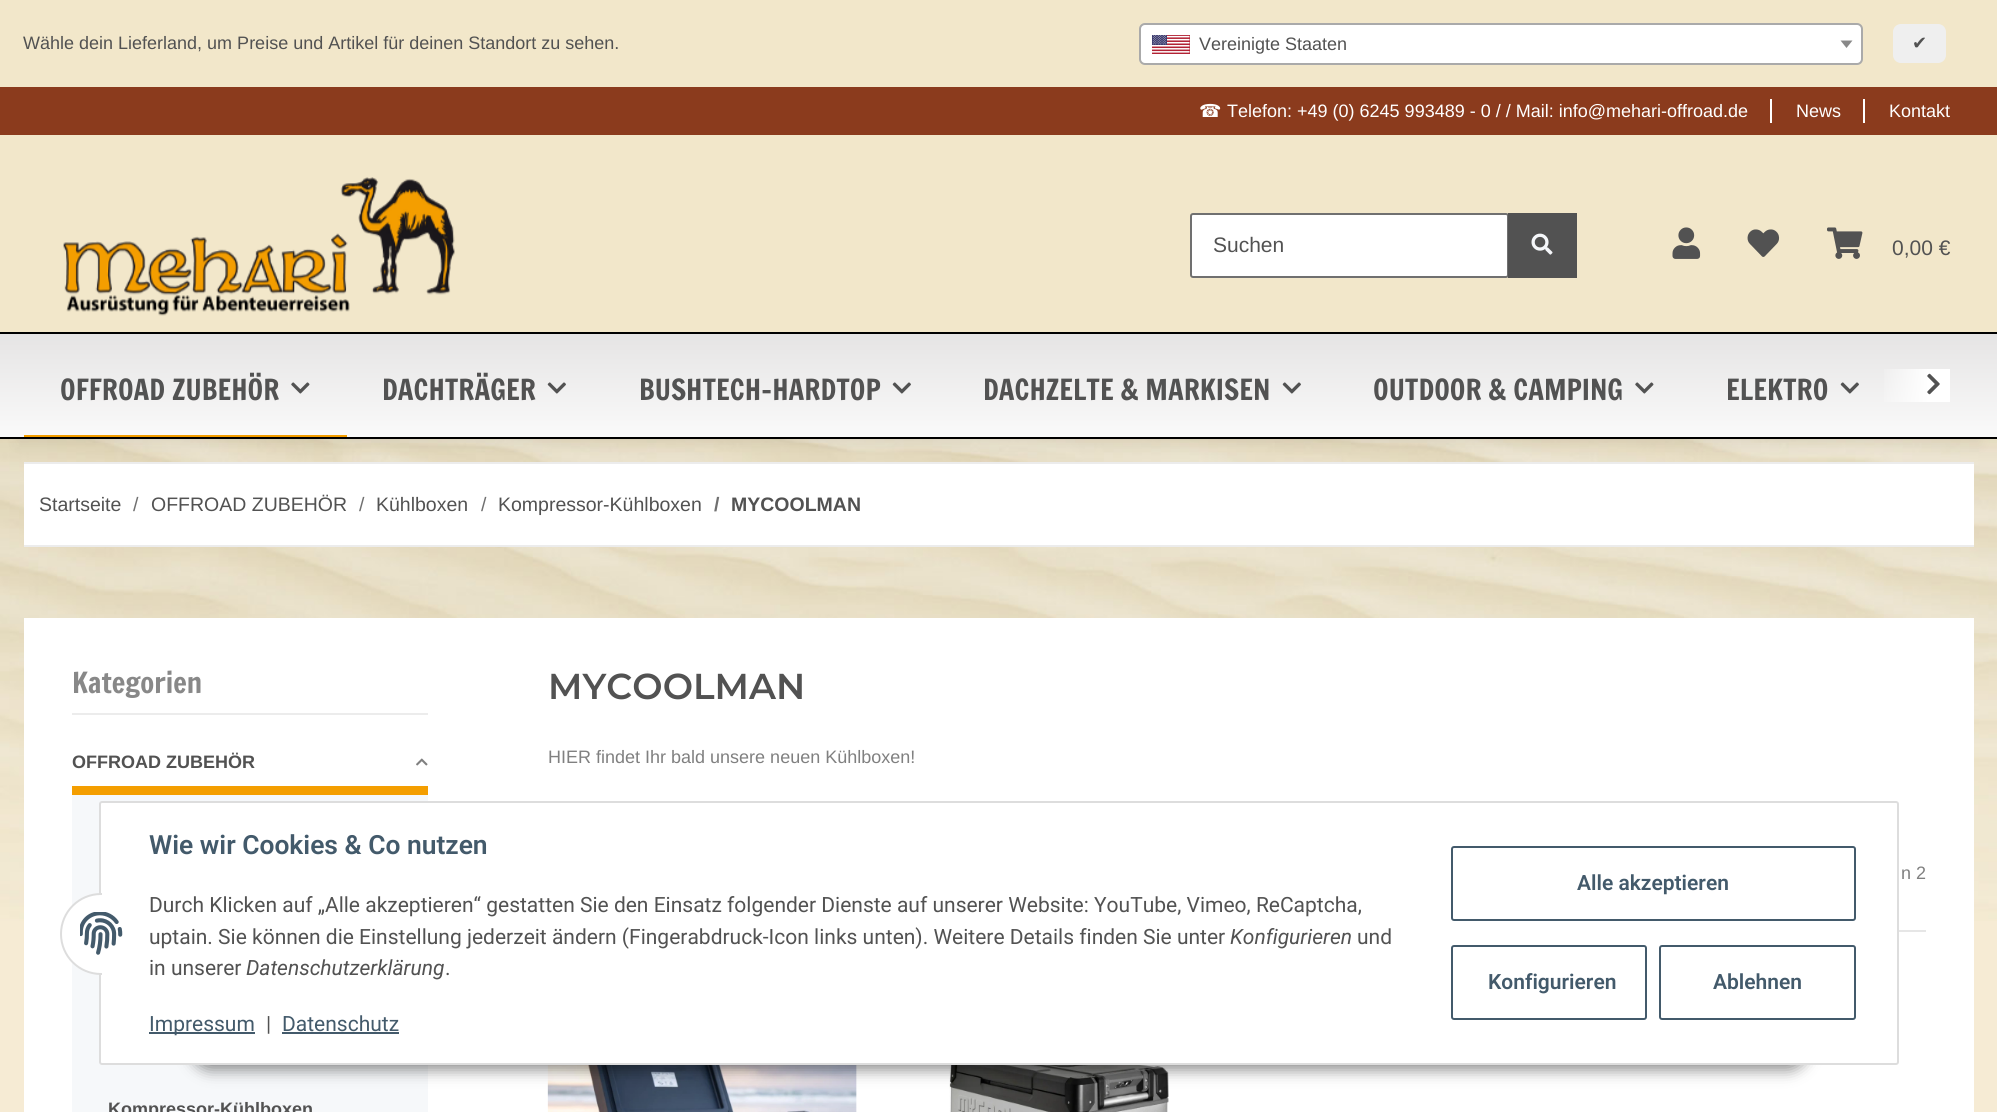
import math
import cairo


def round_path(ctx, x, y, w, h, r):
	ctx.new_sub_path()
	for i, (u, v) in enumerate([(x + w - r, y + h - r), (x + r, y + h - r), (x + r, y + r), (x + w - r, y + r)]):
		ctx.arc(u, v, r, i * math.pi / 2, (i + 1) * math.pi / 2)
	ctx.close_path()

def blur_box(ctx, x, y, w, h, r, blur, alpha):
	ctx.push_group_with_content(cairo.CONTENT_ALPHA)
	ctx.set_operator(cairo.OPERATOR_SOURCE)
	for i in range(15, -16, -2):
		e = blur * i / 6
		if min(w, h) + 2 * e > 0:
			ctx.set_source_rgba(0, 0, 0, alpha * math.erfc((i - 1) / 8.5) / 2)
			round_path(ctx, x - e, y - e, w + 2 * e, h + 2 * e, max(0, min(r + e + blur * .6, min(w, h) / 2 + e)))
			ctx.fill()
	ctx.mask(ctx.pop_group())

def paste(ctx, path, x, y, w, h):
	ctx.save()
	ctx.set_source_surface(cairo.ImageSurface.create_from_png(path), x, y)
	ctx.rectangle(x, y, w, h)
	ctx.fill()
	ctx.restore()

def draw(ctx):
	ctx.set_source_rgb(0.961, 0.918, 0.831)
	ctx.paint()
	paste(ctx, 'media/1.png', 0, 439, 1997, 482)
	ctx.set_source_rgb(1, 1, 1)
	ctx.rectangle(24, 464, 1950, 81)
	ctx.fill()
	ctx.set_source_rgb(0.922, 0.922, 0.922)
	ctx.rectangle(24, 462, 1950, 2)
	ctx.fill()
	ctx.set_source_rgb(0, 0, 0)
	blur_box(ctx, 18, 42, 1962, 402, 0, 7, 0.06)
	ctx.set_source_rgb(0.949, 0.906, 0.792)
	ctx.rectangle(0, 0, 1997, 332)
	ctx.fill()
	ctx.select_font_face('Liberation Sans')
	ctx.set_font_size(18)
	ctx.set_source_rgb(0.322, 0.322, 0.322)
	ctx.move_to(23, 49)
	ctx.show_text('Wähle dein Lieferland, um Preise und Artikel für deinen Standort zu sehen.')
	ctx.set_source_rgb(1, 1, 1)
	round_path(ctx, 1140, 24, 722, 40, 5)
	ctx.fill_preserve()
	ctx.set_source_rgb(0.667, 0.667, 0.667)
	ctx.stroke()
	paste(ctx, 'media/2.png', 1152, 35, 38, 19)
	ctx.set_source_rgb(0.322, 0.322, 0.322)
	ctx.move_to(1199, 50)
	ctx.show_text('Vereinigte Staaten')
	ctx.set_source_rgb(0.533, 0.533, 0.533)
	ctx.new_path()
	ctx.move_to(1840.5, 40.5)
	ctx.line_to(1852.5, 40.5)
	ctx.line_to(1846.5, 48)
	ctx.close_path()
	ctx.fill()
	ctx.set_source_rgb(0.937, 0.937, 0.937)
	round_path(ctx, 1893, 24, 53, 39, 8)
	ctx.fill()
	ctx.select_font_face('DejaVu Sans')
	ctx.set_source_rgb(0.322, 0.322, 0.322)
	ctx.move_to(1912, 49)
	ctx.show_text('✔')
	ctx.set_source_rgb(0.545, 0.231, 0.114)
	ctx.rectangle(0, 87, 1997, 48)
	ctx.fill()
	ctx.set_source_rgb(1, 1, 1)
	ctx.move_to(1199, 117)
	ctx.show_text('☎')
	ctx.select_font_face('Liberation Sans')
	ctx.move_to(1227, 117)
	ctx.show_text('Telefon: +49 (0) 6245 993489 - 0 / / Mail: info@mehari-offroad.de')
	ctx.rectangle(1770, 99, 2, 24)
	ctx.fill()
	ctx.move_to(1796, 117)
	ctx.show_text('News')
	ctx.rectangle(1863, 99, 2, 24)
	ctx.fill()
	ctx.move_to(1889, 117)
	ctx.show_text('Kontakt')
	paste(ctx, 'media/3.png', 63, 177, 392, 139)
	ctx.rectangle(1192, 215, 315, 61)
	ctx.fill()
	round_path(ctx, 1191, 214, 317, 63, 2)
	ctx.set_source_rgb(0.439, 0.439, 0.439)
	ctx.stroke()
	ctx.set_font_size(21)
	ctx.set_source_rgb(0.322, 0.322, 0.322)
	ctx.move_to(1213, 252)
	ctx.show_text('Suchen')
	ctx.rectangle(1508, 213, 69, 65)
	ctx.fill()
	paste(ctx, 'media/4.png', 1531, 233, 22, 22)
	paste(ctx, 'media/5.png', 1672, 227, 29, 32)
	paste(ctx, 'media/6.png', 1747, 229, 33, 28)
	paste(ctx, 'media/7.png', 1827, 227, 36, 32)
	ctx.move_to(1892, 255)
	ctx.show_text('0,00 €')
	gradient = cairo.LinearGradient(999, 333, 999, 437)
	gradient.add_color_stop_rgba(0, 0.898, 0.894, 0.894, 1)
	gradient.add_color_stop_rgba(1, 0.98, 0.98, 0.98, 1)
	ctx.set_source(gradient)
	ctx.rectangle(0, 334, 1997, 103)
	ctx.fill()
	ctx.set_source_rgb(0, 0, 0)
	ctx.rectangle(0, 332, 1997, 2)
	ctx.fill()
	ctx.rectangle(0, 437, 1997, 2)
	ctx.fill()
	ctx.select_font_face('Francois One')
	ctx.set_font_size(28.5)
	ctx.set_source_rgb(0.322, 0.322, 0.322)
	ctx.move_to(60, 400)
	ctx.show_text('OFFROAD ZUBEHÖR')
	paste(ctx, 'media/8.png', 291, 382, 19, 12)
	ctx.set_source_rgb(0.957, 0.62, 0)
	ctx.rectangle(24, 435, 323, 2)
	ctx.fill()
	ctx.set_source_rgb(0.322, 0.322, 0.322)
	ctx.move_to(382, 400)
	ctx.show_text('DACHTRÄGER')
	paste(ctx, 'media/9.png', 547, 382, 19, 12)
	ctx.move_to(639, 400)
	ctx.show_text('BUSHTECH-HARDTOP')
	paste(ctx, 'media/9.png', 892, 382, 19, 12)
	ctx.move_to(983, 400)
	ctx.show_text('DACHZELTE & MARKISEN')
	paste(ctx, 'media/9.png', 1282, 382, 19, 12)
	ctx.move_to(1373, 400)
	ctx.show_text('OUTDOOR & CAMPING')
	paste(ctx, 'media/8.png', 1635, 382, 19, 12)
	ctx.move_to(1726, 400)
	ctx.show_text('ELEKTRO')
	paste(ctx, 'media/9.png', 1840, 382, 19, 12)
	gradient = cairo.LinearGradient(1878, 386, 1950, 386)
	gradient.add_color_stop_rgba(0, 1, 1, 1, 0.01)
	gradient.add_color_stop_rgba(0.7, 1, 1, 1, 1)
	ctx.set_source(gradient)
	ctx.rectangle(1884, 369, 66, 33)
	ctx.fill()
	paste(ctx, 'media/10.png', 1927, 373, 13, 22)
	ctx.set_source_rgb(0.922, 0.922, 0.922)
	ctx.rectangle(24, 545, 1950, 2)
	ctx.fill()
	ctx.select_font_face('Liberation Sans')
	ctx.set_font_size(19.5)
	ctx.set_source_rgb(0.322, 0.322, 0.322)
	ctx.move_to(39, 511)
	ctx.show_text('Startseite')
	ctx.set_source_rgb(0.439, 0.439, 0.439)
	ctx.move_to(133, 511)
	ctx.show_text('/')
	ctx.set_source_rgb(0.322, 0.322, 0.322)
	ctx.move_to(151, 511)
	ctx.show_text('OFFROAD ZUBEHÖR')
	ctx.set_source_rgb(0.439, 0.439, 0.439)
	ctx.move_to(359, 511)
	ctx.show_text('/')
	ctx.set_source_rgb(0.322, 0.322, 0.322)
	ctx.move_to(376, 511)
	ctx.show_text('Kühlboxen')
	ctx.set_source_rgb(0.439, 0.439, 0.439)
	ctx.move_to(481, 511)
	ctx.show_text('/')
	ctx.set_source_rgb(0.322, 0.322, 0.322)
	ctx.move_to(498, 511)
	ctx.show_text('Kompressor-Kühlboxen')
	ctx.select_font_face('Liberation Sans', cairo.FONT_SLANT_NORMAL, cairo.FONT_WEIGHT_BOLD)
	ctx.set_source_rgb(0.439, 0.439, 0.439)
	ctx.move_to(714, 511)
	ctx.show_text('/')
	ctx.set_source_rgb(0.322, 0.322, 0.322)
	ctx.move_to(731, 511)
	ctx.show_text('MYCOOLMAN')
	ctx.set_source_rgb(1, 1, 1)
	ctx.rectangle(24, 618, 1950, 494)
	ctx.fill()
	ctx.set_source_rgb(0.922, 0.922, 0.922)
	ctx.rectangle(72, 713, 356, 2)
	ctx.fill()
	ctx.select_font_face('Francois One')
	ctx.set_font_size(28.5)
	ctx.set_source_rgb(0.533, 0.533, 0.533)
	ctx.move_to(72, 693)
	ctx.show_text('Kategorien')
	ctx.set_source_rgb(0.957, 0.62, 0)
	ctx.rectangle(72, 786, 356, 9)
	ctx.fill()
	ctx.select_font_face('Liberation Sans', cairo.FONT_SLANT_NORMAL, cairo.FONT_WEIGHT_BOLD)
	ctx.set_font_size(18)
	ctx.set_source_rgb(0.322, 0.322, 0.322)
	ctx.move_to(72, 768)
	ctx.show_text('OFFROAD ZUBEHÖR')
	paste(ctx, 'media/11.png', 416, 758, 12, 8)
	ctx.set_source_rgb(0.961, 0.969, 0.98)
	ctx.rectangle(72, 795, 356, 317)
	ctx.fill()
	ctx.set_source_rgb(0.322, 0.322, 0.322)
	ctx.move_to(108, 1115)
	ctx.show_text('Kompressor-Kühlboxen')
	ctx.select_font_face('Montserrat SemiBold')
	ctx.set_font_size(36)
	ctx.move_to(548, 699)
	ctx.show_text('MYCOOLMAN')
	ctx.select_font_face('Liberation Sans')
	ctx.set_font_size(18)
	ctx.set_source_rgb(0.502, 0.502, 0.502)
	ctx.move_to(548, 763)
	ctx.show_text('HIER findet Ihr bald unsere neuen Kühlboxen!')
	ctx.move_to(1901, 879)
	ctx.show_text('n 2')
	ctx.set_source_rgb(0.902, 0.902, 0.902)
	ctx.rectangle(1899, 930, 27, 2)
	ctx.fill()
	paste(ctx, 'media/12.png', 547, 1065, 310, 47)
	paste(ctx, 'media/13.png', 949, 1065, 220, 47)
	ctx.set_source_rgb(0, 0, 0)
	blur_box(ctx, 191, 1022, 1617, 48, 24, 7.5, 0.45)
	ctx.set_source_rgb(1, 1, 1)
	round_path(ctx, 100, 802, 1798, 262, 2)
	ctx.fill_preserve()
	ctx.set_source_rgb(0.867, 0.867, 0.867)
	ctx.stroke()
	ctx.set_source_rgb(1, 1, 1)
	round_path(ctx, 61, 894, 81, 80, 40)
	ctx.fill_preserve()
	ctx.set_source_rgb(0.867, 0.867, 0.867)
	ctx.stroke()
	ctx.set_source_rgb(1, 1, 1)
	ctx.rectangle(102, 893, 41, 82)
	ctx.fill()
	paste(ctx, 'media/14.png', 80, 912, 43, 43)
	ctx.select_font_face('Roboto SemiBold')
	ctx.set_font_size(26.4)
	ctx.set_source_rgb(0.263, 0.353, 0.42)
	ctx.move_to(149, 854)
	ctx.show_text('Wie wir Cookies & Co nutzen')
	ctx.select_font_face('Roboto')
	ctx.set_font_size(21)
	ctx.set_source_rgb(0.322, 0.322, 0.322)
	ctx.move_to(149, 912)
	ctx.show_text('Durch Klicken auf „Alle akzeptieren“ gestatten Sie den Einsatz folgender Dienste auf unserer Website: YouTube, Vimeo, ReCaptcha,')
	ctx.move_to(149, 944)
	ctx.show_text('uptain. Sie können die Einstellung jederzeit ändern (Fingerabdruck-Icon links unten). Weitere Details finden Sie unter')
	ctx.select_font_face('Roboto', cairo.FONT_SLANT_ITALIC)
	ctx.move_to(1230, 944)
	ctx.show_text('Konfigurieren')
	ctx.select_font_face('Roboto')
	ctx.move_to(1357, 944)
	ctx.show_text('und')
	ctx.move_to(149, 975)
	ctx.show_text('in unserer')
	ctx.select_font_face('Roboto', cairo.FONT_SLANT_ITALIC)
	ctx.move_to(246, 975)
	ctx.show_text('Datenschutzerklärung')
	ctx.select_font_face('Roboto')
	ctx.move_to(445, 975)
	ctx.show_text('.')
	ctx.set_source_rgb(0.263, 0.353, 0.42)
	ctx.rectangle(149, 1032, 106, 2)
	ctx.fill()
	ctx.move_to(149, 1031)
	ctx.show_text('Impressum')
	ctx.set_source_rgb(0.322, 0.322, 0.322)
	ctx.move_to(266, 1031)
	ctx.show_text('|')
	ctx.set_source_rgb(0.263, 0.353, 0.42)
	ctx.move_to(282, 1031)
	ctx.show_text('Datenschutz')
	ctx.rectangle(282, 1032, 117, 2)
	ctx.fill()
	round_path(ctx, 1452, 847, 403, 73, 2)
	ctx.stroke()
	ctx.select_font_face('Roboto SemiBold')
	ctx.move_to(1577, 890)
	ctx.show_text('Alle akzeptieren')
	round_path(ctx, 1452, 946, 194, 73, 2)
	ctx.stroke()
	ctx.move_to(1488, 989)
	ctx.show_text('Konfigurieren')
	round_path(ctx, 1660, 946, 195, 73, 2)
	ctx.stroke()
	ctx.move_to(1713, 989)
	ctx.show_text('Ablehnen')


surface = cairo.ImageSurface(cairo.FORMAT_RGB24, 1997, 1112)
ctx = cairo.Context(surface)
options = cairo.FontOptions()
options.set_hint_metrics(cairo.HINT_METRICS_OFF)
options.set_hint_style(cairo.HINT_STYLE_NONE)
ctx.set_font_options(options)
ctx.set_miter_limit(4)
draw(ctx)
surface.write_to_png('image.png')
